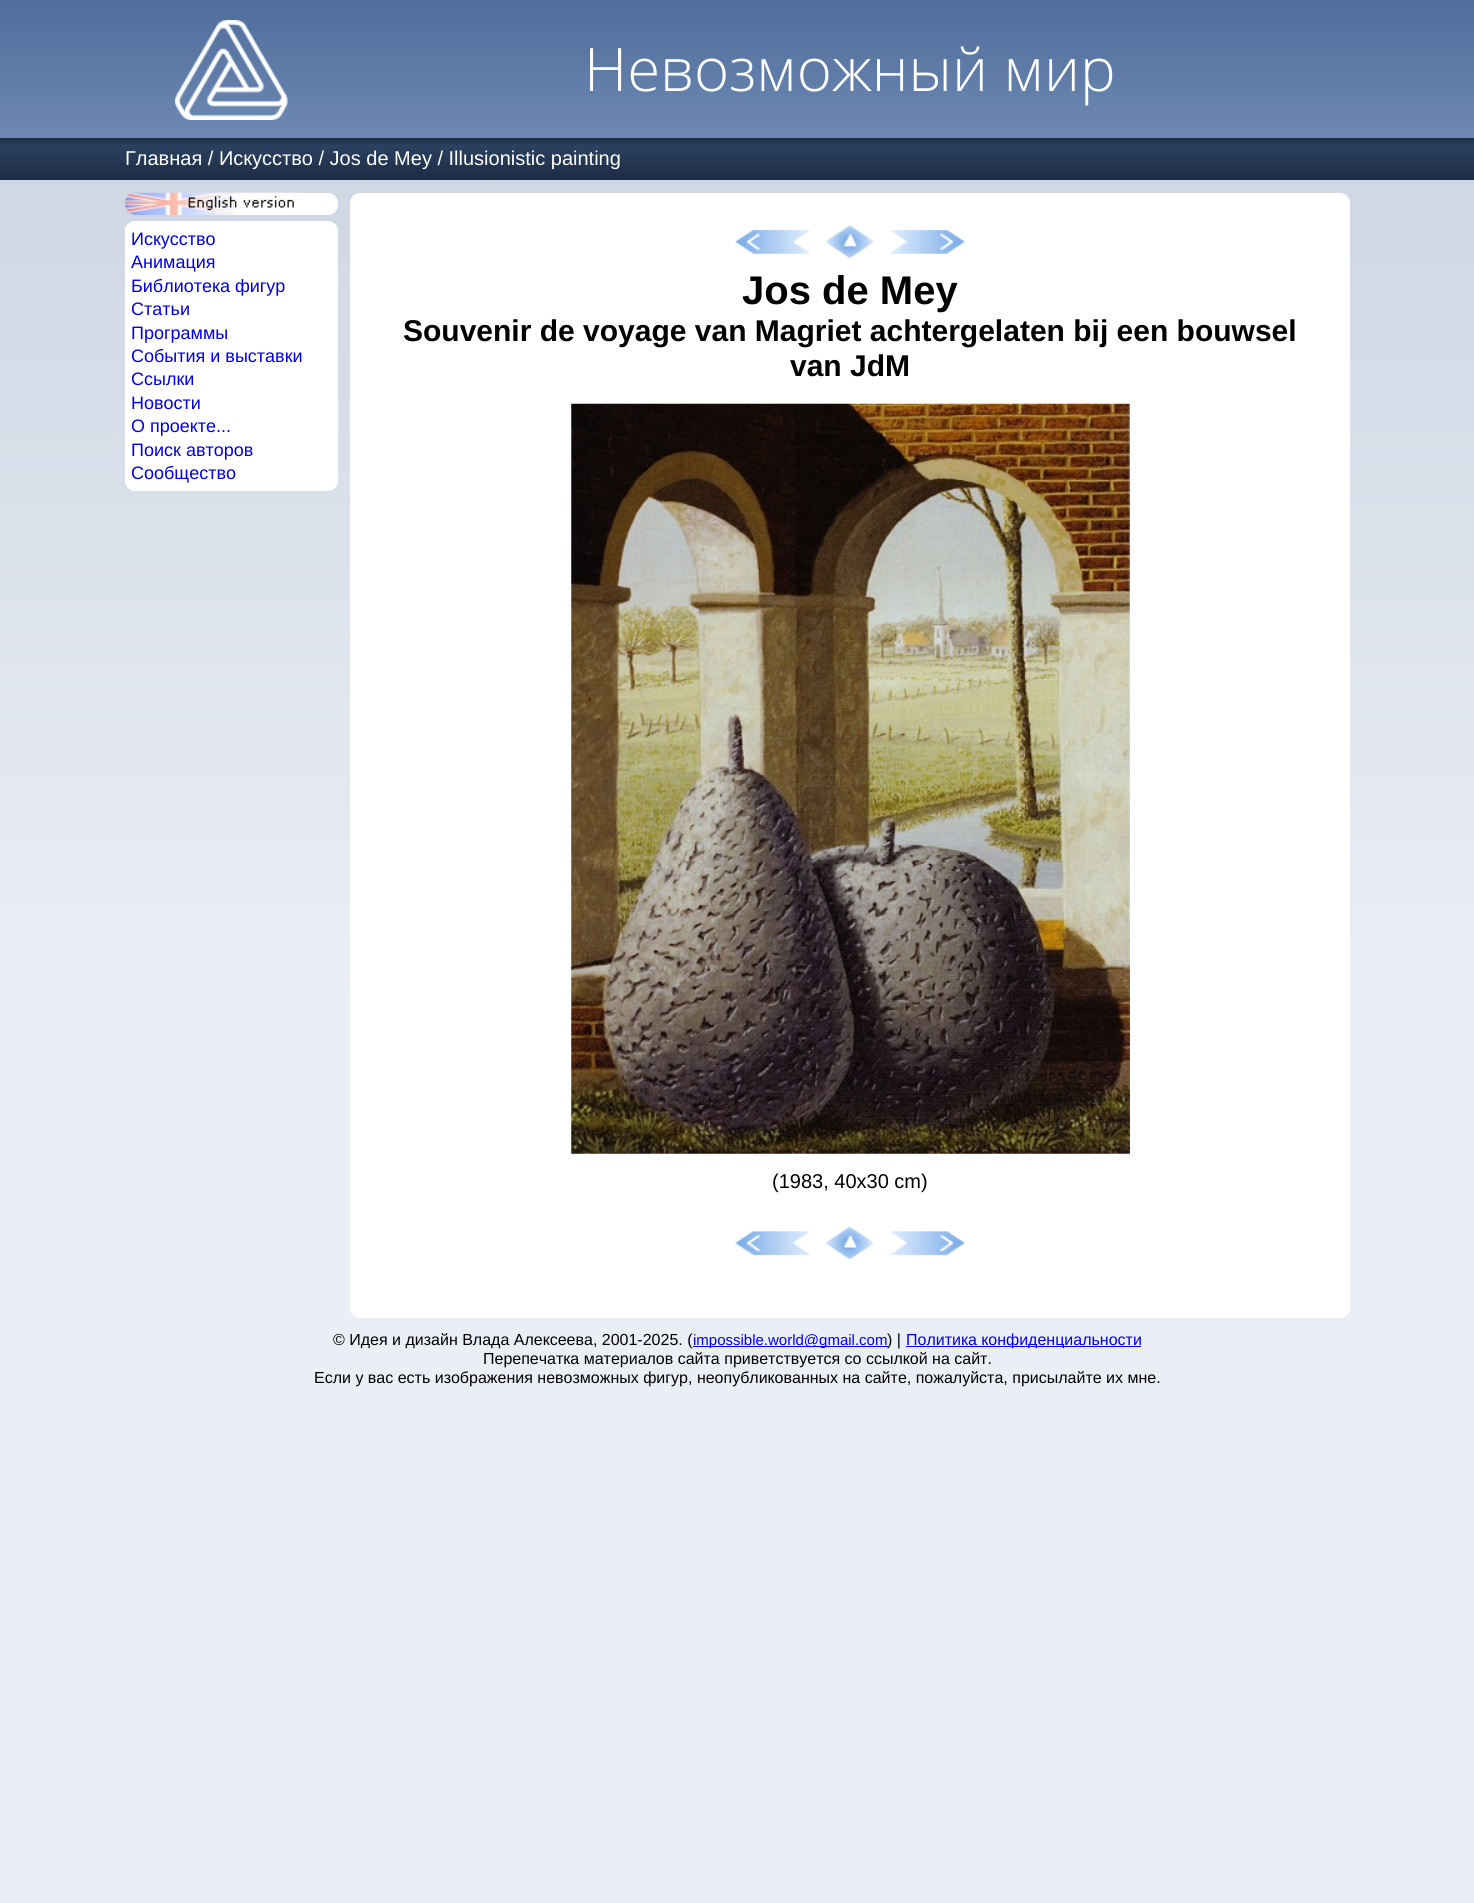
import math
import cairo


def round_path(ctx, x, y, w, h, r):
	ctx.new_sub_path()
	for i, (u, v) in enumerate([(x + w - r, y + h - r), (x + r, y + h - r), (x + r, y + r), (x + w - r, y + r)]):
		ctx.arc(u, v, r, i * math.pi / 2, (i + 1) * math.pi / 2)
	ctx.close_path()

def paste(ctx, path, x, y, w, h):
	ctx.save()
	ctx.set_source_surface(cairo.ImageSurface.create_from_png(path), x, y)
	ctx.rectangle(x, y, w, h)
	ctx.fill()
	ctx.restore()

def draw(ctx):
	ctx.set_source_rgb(1, 1, 1)
	ctx.paint()
	gradient = cairo.LinearGradient(737, 0, 738, 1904)
	gradient.add_color_stop_rgba(0.07, 0.808, 0.839, 0.89, 1)
	gradient.add_color_stop_rgba(0.53, 0.922, 0.937, 0.961, 1)
	ctx.set_source(gradient)
	ctx.rectangle(0, 180, 1474, 1723)
	ctx.fill()
	gradient = cairo.LinearGradient(738, 0, 738, 138)
	gradient.add_color_stop_rgba(0, 0.31, 0.427, 0.612, 1)
	gradient.add_color_stop_rgba(1, 0.427, 0.537, 0.702, 1)
	ctx.set_source(gradient)
	ctx.rectangle(0, 0, 1474, 138)
	ctx.fill()
	paste(ctx, 'media/1.png', 175, 20, 113, 100)
	ctx.select_font_face('Open Sans Light')
	ctx.set_font_size(60)
	ctx.set_source_rgb(1, 1, 1)
	ctx.move_to(584, 91)
	ctx.show_text('Невозможный мир')
	gradient = cairo.LinearGradient(738, 137, 738, 180)
	gradient.add_color_stop_rgba(0, 0.114, 0.169, 0.263, 1)
	gradient.add_color_stop_rgba(0.2, 0.169, 0.255, 0.38, 1)
	gradient.add_color_stop_rgba(1, 0.114, 0.169, 0.263, 1)
	ctx.set_source(gradient)
	ctx.rectangle(0, 138, 1474, 42)
	ctx.fill()
	ctx.select_font_face('Liberation Sans')
	ctx.set_font_size(20)
	ctx.set_source_rgb(1, 1, 1)
	ctx.move_to(125, 165)
	ctx.show_text('Главная / Искусство / Jos de Mey / Illusionistic painting')
	round_path(ctx, 125, 193, 213, 22, 10)
	ctx.fill()
	paste(ctx, 'media/2.png', 125, 192, 175, 23)
	round_path(ctx, 125, 221, 213, 270, 10)
	ctx.fill()
	ctx.set_font_size(18)
	ctx.set_source_rgb(0, 0, 0.933)
	for x, y, s in [
		(131, 245, 'Искусство'),
		(131, 268, 'Анимация'),
		(131, 292, 'Библиотека фигур'),
		(131, 315, 'Статьи'),
		(131, 339, 'Программы'),
		(131, 362, 'События и выставки'),
		(131, 385, 'Ссылки'),
		(131, 409, 'Новости'),
		(131, 432, 'О проекте...'),
		(131, 456, 'Поиск авторов'),
		(131, 479, 'Сообщество'),
	]:
		ctx.move_to(x, y)
		ctx.show_text(s)
	ctx.set_source_rgb(1, 1, 1)
	round_path(ctx, 350, 193, 1000, 1125, 10)
	ctx.fill()
	paste(ctx, 'media/3.png', 735, 229, 75, 25)
	paste(ctx, 'media/4.png', 825, 225, 49, 34)
	paste(ctx, 'media/5.png', 890, 229, 75, 25)
	ctx.select_font_face('Liberation Sans', cairo.FONT_SLANT_NORMAL, cairo.FONT_WEIGHT_BOLD)
	ctx.set_font_size(40)
	ctx.set_source_rgb(0, 0, 0)
	ctx.move_to(742, 304)
	ctx.show_text('Jos de Mey')
	ctx.set_font_size(30)
	ctx.move_to(403, 341)
	ctx.show_text('Souvenir de voyage van Magriet achtergelaten bij een bouwsel')
	ctx.move_to(790, 376)
	ctx.show_text('van JdM')
	paste(ctx, 'media/6.png', 571, 403, 559, 751)
	ctx.select_font_face('Liberation Sans')
	ctx.set_font_size(20)
	ctx.move_to(772, 1188)
	ctx.show_text('(1983, 40x30 cm)')
	paste(ctx, 'media/7.png', 735, 1231, 75, 25)
	paste(ctx, 'media/8.png', 825, 1226, 49, 34)
	paste(ctx, 'media/9.png', 890, 1231, 75, 25)
	ctx.set_font_size(16)
	ctx.move_to(333, 1345)
	ctx.show_text('© Идея и дизайн Влада Алексеева, 2001-2025. (')
	ctx.set_source_rgb(0, 0, 0.933)
	ctx.rectangle(693, 1346, 195, 1)
	ctx.fill()
	ctx.set_font_size(15)
	ctx.set_source_rgb(0, 0, 1)
	ctx.move_to(693, 1345)
	ctx.show_text('impossible.world@gmail.com')
	ctx.set_font_size(16)
	ctx.set_source_rgb(0, 0, 0)
	ctx.move_to(887, 1345)
	ctx.show_text(') |')
	ctx.set_source_rgb(0, 0, 0.933)
	ctx.rectangle(906, 1346, 235, 1)
	ctx.fill()
	ctx.move_to(906, 1345)
	ctx.show_text('Политика конфиденциальности')
	ctx.set_source_rgb(0, 0, 0)
	ctx.move_to(483, 1364)
	ctx.show_text('Перепечатка материалов сайта приветствуется со ссылкой на сайт.')
	ctx.move_to(314, 1383)
	ctx.show_text('Если у вас есть изображения невозможных фигур, неопубликованных на сайте, пожалуйста, присылайте их мне.')


surface = cairo.ImageSurface(cairo.FORMAT_RGB24, 1474, 1903)
ctx = cairo.Context(surface)
options = cairo.FontOptions()
options.set_hint_metrics(cairo.HINT_METRICS_OFF)
options.set_hint_style(cairo.HINT_STYLE_NONE)
ctx.set_font_options(options)
ctx.set_miter_limit(4)
draw(ctx)
surface.write_to_png('image.png')
